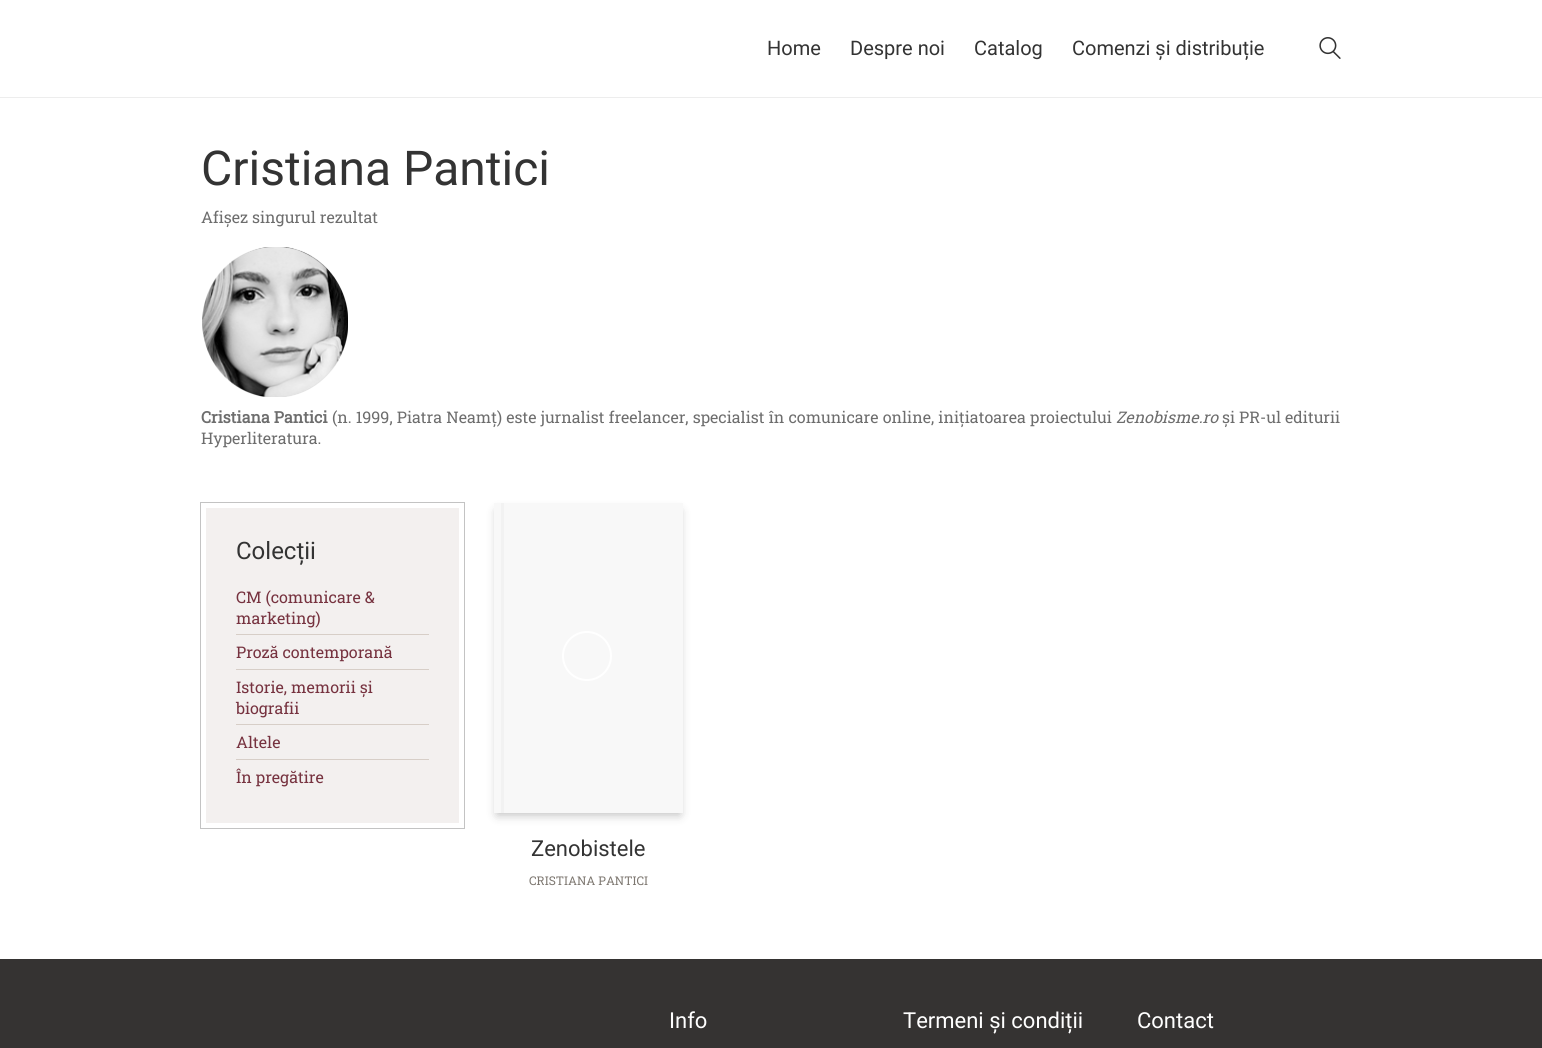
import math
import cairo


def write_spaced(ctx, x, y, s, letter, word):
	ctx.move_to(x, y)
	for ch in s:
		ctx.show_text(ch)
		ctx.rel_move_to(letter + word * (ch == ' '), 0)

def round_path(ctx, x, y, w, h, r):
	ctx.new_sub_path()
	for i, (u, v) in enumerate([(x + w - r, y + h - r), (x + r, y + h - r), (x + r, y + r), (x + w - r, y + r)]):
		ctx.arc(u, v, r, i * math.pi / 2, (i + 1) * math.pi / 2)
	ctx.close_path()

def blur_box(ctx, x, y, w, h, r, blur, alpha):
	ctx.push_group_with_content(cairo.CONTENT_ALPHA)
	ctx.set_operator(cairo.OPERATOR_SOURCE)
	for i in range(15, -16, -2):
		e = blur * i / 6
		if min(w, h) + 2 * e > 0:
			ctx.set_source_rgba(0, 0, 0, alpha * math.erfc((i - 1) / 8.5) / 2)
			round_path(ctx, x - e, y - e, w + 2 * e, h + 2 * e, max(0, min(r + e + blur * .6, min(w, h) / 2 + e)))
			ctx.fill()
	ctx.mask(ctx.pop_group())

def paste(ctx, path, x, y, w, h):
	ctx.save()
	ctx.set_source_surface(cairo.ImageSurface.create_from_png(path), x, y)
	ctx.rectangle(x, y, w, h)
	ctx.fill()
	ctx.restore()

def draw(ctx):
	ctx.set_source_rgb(1, 1, 1)
	ctx.paint()
	ctx.set_source_rgb(0.929, 0.929, 0.929)
	ctx.rectangle(0, 97, 1542, 1)
	ctx.fill()
	ctx.select_font_face('Roboto')
	ctx.set_font_size(20)
	ctx.set_source_rgb(0.2, 0.2, 0.2)
	for x, y, s in [
		(767, 55, 'Home'),
		(850, 55, 'Despre noi'),
		(974, 55, 'Catalog'),
		(1072, 55, 'Comenzi și distribuție'),
	]:
		ctx.move_to(x, y)
		ctx.show_text(s)
	paste(ctx, 'media/1.png', 1319, 37, 22, 22)
	ctx.set_font_size(48)
	ctx.move_to(201, 185)
	ctx.show_text('Cristiana Pantici')
	ctx.select_font_face('Roboto Slab')
	ctx.set_font_size(16)
	ctx.set_source_rgb(0.427, 0.427, 0.427)
	ctx.move_to(201, 223)
	ctx.show_text('Afișez singurul rezultat')
	paste(ctx, 'media/2.png', 202, 247, 146, 150)
	ctx.select_font_face('Roboto Slab', cairo.FONT_SLANT_NORMAL, cairo.FONT_WEIGHT_BOLD)
	ctx.move_to(201, 423)
	ctx.show_text('Cristiana Pantici')
	ctx.select_font_face('Roboto Slab')
	write_spaced(ctx, 332, 423, '(n. 1999, Piatra Neamț) este jurnalist freelancer, specialist în comunicare online, inițiatoarea proiectului', 0, 0.25)
	ctx.select_font_face('Roboto Slab', cairo.FONT_SLANT_ITALIC)
	ctx.move_to(1116, 423)
	ctx.show_text('Zenobisme.ro')
	ctx.select_font_face('Roboto Slab')
	ctx.move_to(1222, 423)
	ctx.show_text('și PR-ul editurii')
	ctx.move_to(201, 444)
	ctx.show_text('Hyperliteratura.')
	ctx.rectangle(200.5, 502.5, 264, 326)
	ctx.set_source_rgb(0.765, 0.765, 0.765)
	ctx.set_line_width(1)
	ctx.stroke()
	ctx.set_source_rgb(0.953, 0.941, 0.937)
	ctx.rectangle(206, 508, 253, 315)
	ctx.fill()
	ctx.select_font_face('Roboto')
	ctx.set_font_size(24)
	ctx.set_source_rgb(0.2, 0.2, 0.2)
	ctx.move_to(236, 559)
	ctx.show_text('Colecții')
	ctx.set_source_rgb(0.843, 0.808, 0.78)
	ctx.rectangle(236, 634, 193, 1)
	ctx.fill()
	ctx.select_font_face('Roboto Slab')
	ctx.set_font_size(16)
	ctx.set_source_rgb(0.463, 0.196, 0.247)
	ctx.move_to(236, 603)
	ctx.show_text('CM (comunicare &')
	ctx.move_to(236, 624)
	ctx.show_text('marketing)')
	ctx.set_source_rgb(0.843, 0.808, 0.78)
	ctx.rectangle(236, 669, 193, 1)
	ctx.fill()
	ctx.set_source_rgb(0.463, 0.196, 0.247)
	ctx.move_to(236, 658)
	ctx.show_text('Proză contemporană')
	ctx.set_source_rgb(0.843, 0.808, 0.78)
	ctx.rectangle(236, 724, 193, 1)
	ctx.fill()
	ctx.set_source_rgb(0.463, 0.196, 0.247)
	ctx.move_to(236, 693)
	ctx.show_text('Istorie, memorii și')
	ctx.move_to(236, 714)
	ctx.show_text('biografii')
	ctx.set_source_rgb(0.843, 0.808, 0.78)
	ctx.rectangle(236, 759, 193, 1)
	ctx.fill()
	ctx.set_source_rgb(0.463, 0.196, 0.247)
	ctx.move_to(236, 748)
	ctx.show_text('Altele')
	ctx.move_to(236, 783)
	ctx.show_text('În pregătire')
	ctx.set_source_rgb(0, 0, 0)
	blur_box(ctx, 497, 511, 183, 304, 0, 5, 0.25)
	ctx.set_source_rgb(0.969, 0.969, 0.969)
	ctx.rectangle(494, 503, 189, 310)
	ctx.fill()
	ctx.arc(587, 656, 24, 0, 2 * math.pi)
	ctx.set_source_rgb(1, 1, 1)
	ctx.set_line_width(2)
	ctx.stroke()
	ctx.set_source_rgb(0.949, 0.949, 0.949)
	ctx.rectangle(501, 503, 3, 310)
	ctx.fill()
	ctx.select_font_face('Roboto')
	ctx.set_font_size(22)
	ctx.set_source_rgb(0.2, 0.2, 0.2)
	ctx.move_to(531, 856)
	ctx.show_text('Zenobistele')
	ctx.select_font_face('Roboto Slab')
	ctx.set_font_size(12)
	ctx.set_source_rgb(0.49, 0.467, 0.439)
	ctx.move_to(529, 885)
	ctx.show_text('CRISTIANA PANTICI')
	ctx.set_source_rgb(0.208, 0.2, 0.196)
	ctx.rectangle(0, 959, 1542, 89)
	ctx.fill()
	ctx.select_font_face('Roboto')
	ctx.set_font_size(22)
	ctx.set_source_rgb(1, 1, 1)
	for x, y, s in [
		(669, 1028, 'Info'),
		(903, 1028, 'Termeni și condiții'),
		(1137, 1028, 'Contact'),
	]:
		ctx.move_to(x, y)
		ctx.show_text(s)


surface = cairo.ImageSurface(cairo.FORMAT_RGB24, 1542, 1048)
ctx = cairo.Context(surface)
options = cairo.FontOptions()
options.set_hint_metrics(cairo.HINT_METRICS_OFF)
options.set_hint_style(cairo.HINT_STYLE_NONE)
ctx.set_font_options(options)
ctx.set_miter_limit(4)
draw(ctx)
surface.write_to_png('image.png')
